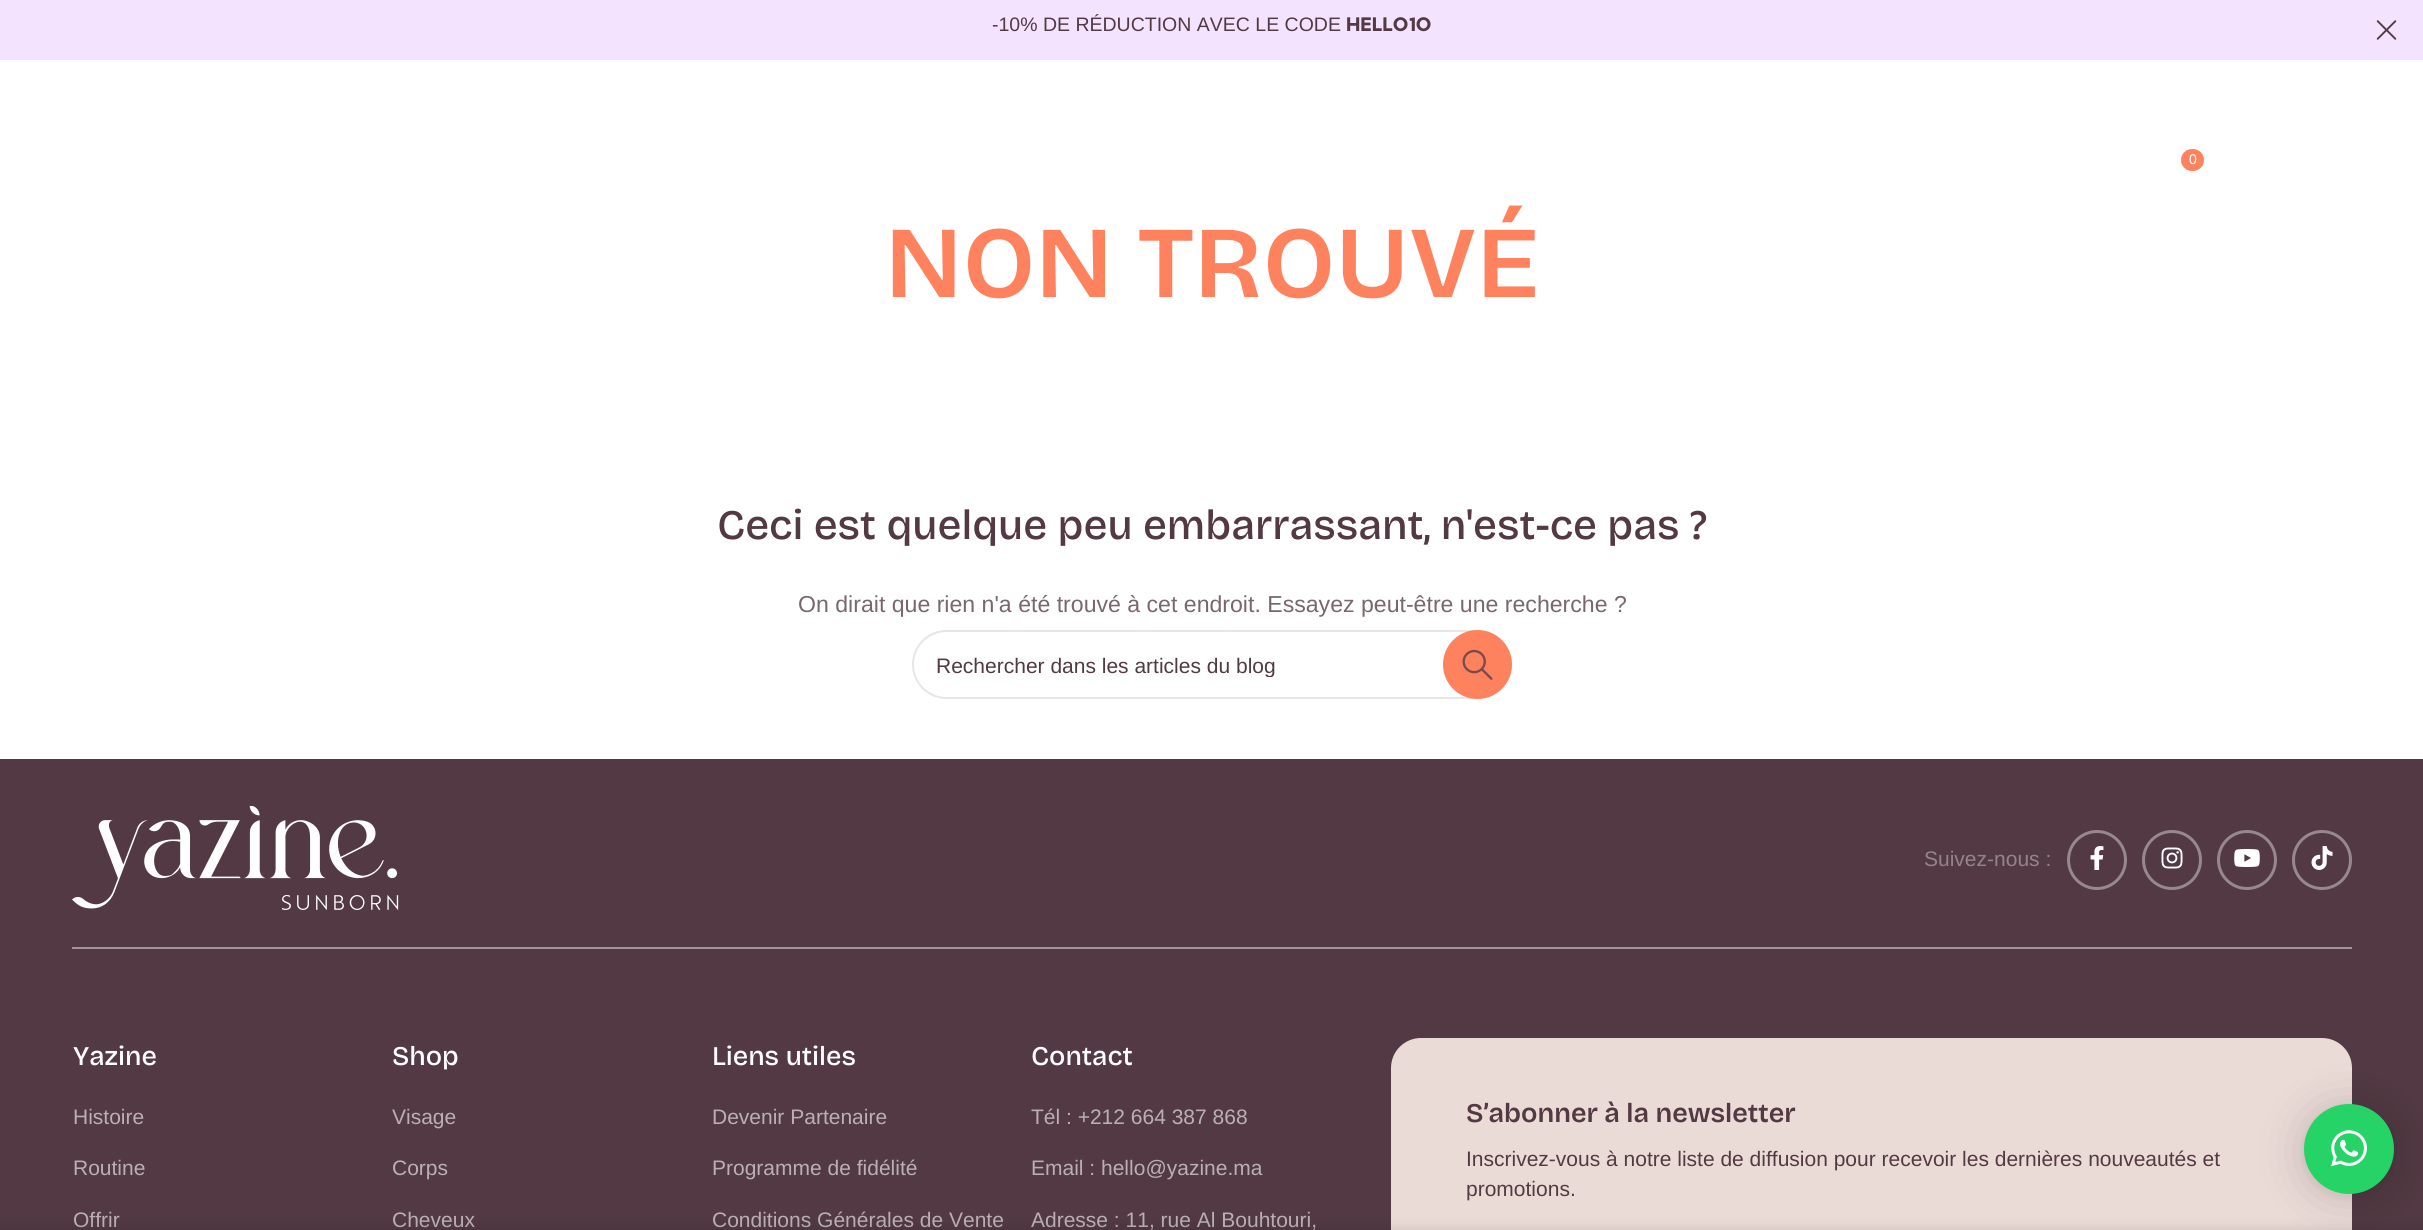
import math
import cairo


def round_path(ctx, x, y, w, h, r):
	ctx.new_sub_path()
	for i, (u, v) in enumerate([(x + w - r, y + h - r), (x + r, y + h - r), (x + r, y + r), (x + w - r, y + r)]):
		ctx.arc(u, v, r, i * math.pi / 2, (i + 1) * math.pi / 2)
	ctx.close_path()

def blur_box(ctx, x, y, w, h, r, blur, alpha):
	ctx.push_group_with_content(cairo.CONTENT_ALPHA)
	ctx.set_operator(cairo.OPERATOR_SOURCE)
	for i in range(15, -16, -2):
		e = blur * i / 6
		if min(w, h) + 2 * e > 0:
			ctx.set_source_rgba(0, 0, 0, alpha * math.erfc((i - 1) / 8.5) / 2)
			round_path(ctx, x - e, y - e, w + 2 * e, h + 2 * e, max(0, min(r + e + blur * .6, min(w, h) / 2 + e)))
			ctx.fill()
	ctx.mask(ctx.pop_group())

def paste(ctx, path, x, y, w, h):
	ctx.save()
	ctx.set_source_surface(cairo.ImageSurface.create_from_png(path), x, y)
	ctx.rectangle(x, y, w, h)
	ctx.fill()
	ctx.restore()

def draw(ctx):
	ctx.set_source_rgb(1, 1, 1)
	ctx.paint()
	ctx.set_source_rgb(0.957, 0.89, 1)
	ctx.rectangle(0, 0, 2423, 60)
	ctx.fill()
	ctx.select_font_face('Liberation Sans')
	ctx.set_font_size(19.5)
	ctx.set_source_rgb(0.322, 0.224, 0.263)
	ctx.move_to(992, 31)
	ctx.show_text('-10% DE RÉDUCTION AVEC LE CODE')
	ctx.select_font_face('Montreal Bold', cairo.FONT_SLANT_NORMAL, cairo.FONT_WEIGHT_BOLD)
	ctx.move_to(1346, 31)
	ctx.show_text('HELLO1O')
	paste(ctx, 'media/1.png', 2376, 20, 21, 20)
	ctx.set_source_rgb(1, 0.51, 0.373)
	round_path(ctx, 2181, 149, 23, 22, 11)
	ctx.fill()
	ctx.select_font_face('Liberation Sans')
	ctx.set_font_size(14)
	ctx.set_source_rgb(1, 1, 1)
	ctx.move_to(2189, 164)
	ctx.show_text('0')
	paste(ctx, 'media/2.png', 1110, 166, 12, 7)
	ctx.select_font_face('Bricolage Grotesque SemiBold')
	ctx.set_font_size(101.75)
	ctx.set_source_rgb(1, 0.51, 0.373)
	ctx.move_to(885, 297)
	ctx.show_text('NON TROUVÉ')
	ctx.select_font_face('Bricolage Grotesque Medium')
	ctx.set_font_size(42)
	ctx.set_source_rgb(0.322, 0.224, 0.263)
	ctx.move_to(717, 539)
	ctx.show_text('Ceci est quelque peu embarrassant, n\'est-ce pas ?')
	ctx.select_font_face('Liberation Sans')
	ctx.set_font_size(23.1)
	ctx.set_source_rgb(0.478, 0.404, 0.431)
	ctx.move_to(798, 612)
	ctx.show_text('On dirait que rien n\'a été trouvé à cet endroit. Essayez peut-être une recherche ?')
	round_path(ctx, 913, 631, 598, 67, 33.5)
	ctx.set_source_rgb(0.902, 0.902, 0.902)
	ctx.stroke()
	ctx.save()
	ctx.rectangle(936, 653, 461, 24)
	ctx.clip()
	ctx.set_font_size(21)
	ctx.set_source_rgb(0.322, 0.224, 0.263)
	ctx.move_to(936, 673)
	ctx.show_text('Rechercher dans les articles du blog')
	ctx.restore()
	ctx.set_source_rgb(1, 0.51, 0.373)
	ctx.new_path()
	ctx.arc(1477.5, 664.5, 34.5, 0, 2 * math.pi)
	ctx.fill()
	paste(ctx, 'media/3.png', 1462, 649, 31, 31)
	ctx.set_source_rgb(0.322, 0.224, 0.263)
	ctx.rectangle(0, 759, 2423, 471)
	ctx.fill()
	ctx.set_source_rgb(0.635, 0.58, 0.6)
	ctx.rectangle(72, 947, 2280, 2)
	ctx.fill()
	paste(ctx, 'media/4.png', 72, 806, 327, 104)
	ctx.set_font_size(21)
	ctx.set_source_rgb(0.58, 0.518, 0.541)
	ctx.move_to(1924, 866)
	ctx.show_text('Suivez-nous :')
	ctx.new_path()
	ctx.arc(2097, 860, 28.5, 0, 2 * math.pi)
	ctx.set_source_rgb(0.592, 0.533, 0.557)
	ctx.set_line_width(3)
	ctx.stroke()
	paste(ctx, 'media/5.png', 2090, 846, 14, 24)
	ctx.arc(2172, 860, 28.5, 0, 2 * math.pi)
	ctx.stroke()
	paste(ctx, 'media/6.png', 2161, 847, 22, 22)
	ctx.arc(2247, 860, 28.5, 0, 2 * math.pi)
	ctx.stroke()
	paste(ctx, 'media/7.png', 2234, 849, 26, 18)
	ctx.arc(2322, 860, 28.5, 0, 2 * math.pi)
	ctx.stroke()
	paste(ctx, 'media/8.png', 2311, 846, 22, 24)
	ctx.select_font_face('Bricolage Grotesque Medium')
	ctx.set_font_size(27)
	ctx.set_source_rgb(1, 1, 1)
	ctx.move_to(73, 1065)
	ctx.show_text('Yazine')
	ctx.select_font_face('Liberation Sans')
	ctx.set_font_size(21)
	ctx.set_source_rgb(0.729, 0.69, 0.706)
	for x, y, s in [
		(73, 1124, 'Histoire'),
		(73, 1175, 'Routine'),
		(73, 1227, 'Offrir'),
	]:
		ctx.move_to(x, y)
		ctx.show_text(s)
	ctx.select_font_face('Bricolage Grotesque Medium')
	ctx.set_font_size(27)
	ctx.set_source_rgb(1, 1, 1)
	ctx.move_to(392, 1065)
	ctx.show_text('Shop')
	ctx.select_font_face('Liberation Sans')
	ctx.set_font_size(21)
	ctx.set_source_rgb(0.729, 0.69, 0.706)
	for x, y, s in [
		(392, 1124, 'Visage'),
		(392, 1175, 'Corps'),
		(392, 1227, 'Cheveux'),
	]:
		ctx.move_to(x, y)
		ctx.show_text(s)
	ctx.select_font_face('Bricolage Grotesque Medium')
	ctx.set_font_size(27)
	ctx.set_source_rgb(1, 1, 1)
	ctx.move_to(712, 1065)
	ctx.show_text('Liens utiles')
	ctx.select_font_face('Liberation Sans')
	ctx.set_font_size(21)
	ctx.set_source_rgb(0.729, 0.69, 0.706)
	for x, y, s in [
		(712, 1124, 'Devenir Partenaire'),
		(712, 1175, 'Programme de fidélité'),
		(712, 1227, 'Conditions Générales de Vente'),
	]:
		ctx.move_to(x, y)
		ctx.show_text(s)
	ctx.select_font_face('Bricolage Grotesque Medium')
	ctx.set_font_size(27)
	ctx.set_source_rgb(1, 1, 1)
	ctx.move_to(1031, 1065)
	ctx.show_text('Contact')
	ctx.select_font_face('Liberation Sans')
	ctx.set_font_size(21)
	ctx.set_source_rgb(0.729, 0.69, 0.706)
	for x, y, s in [
		(1031, 1124, 'Tél : +212 664 387 868'),
		(1031, 1175, 'Email : hello@yazine.ma'),
		(1031, 1227, 'Adresse : 11, rue Al Bouhtouri,'),
	]:
		ctx.move_to(x, y)
		ctx.show_text(s)
	ctx.set_source_rgb(0.918, 0.859, 0.843)
	round_path(ctx, 1391, 1038, 961, 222, 30)
	ctx.fill()
	ctx.select_font_face('Bricolage Grotesque SemiBold')
	ctx.set_font_size(27)
	ctx.set_source_rgb(0.322, 0.224, 0.263)
	ctx.move_to(1466, 1122)
	ctx.show_text('S’abonner à la newsletter')
	ctx.select_font_face('Liberation Sans')
	ctx.set_font_size(21)
	ctx.move_to(1466, 1166)
	ctx.show_text('Inscrivez-vous à notre liste de diffusion pour recevoir les dernières nouveautés et')
	ctx.move_to(1466, 1196)
	ctx.show_text('promotions.')
	ctx.set_source_rgb(0, 0, 0)
	blur_box(ctx, 2304, 1107, 90, 90, 45, 24, 0.16)
	blur_box(ctx, 2304, 1106, 90, 90, 45, 4.5, 0.06)
	ctx.set_source_rgb(0.145, 0.827, 0.4)
	ctx.arc(2349, 1149, 45, 0, 2 * math.pi)
	ctx.fill()
	paste(ctx, 'media/9.png', 2331, 1130, 36, 37)
	ctx.set_source_rgb(0, 0, 0)
	blur_box(ctx, 0, 1230, 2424, 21, 0, 7, 0.14)


surface = cairo.ImageSurface(cairo.FORMAT_RGB24, 2423, 1230)
ctx = cairo.Context(surface)
options = cairo.FontOptions()
options.set_hint_metrics(cairo.HINT_METRICS_OFF)
options.set_hint_style(cairo.HINT_STYLE_NONE)
ctx.set_font_options(options)
ctx.set_miter_limit(4)
draw(ctx)
surface.write_to_png('image.png')
